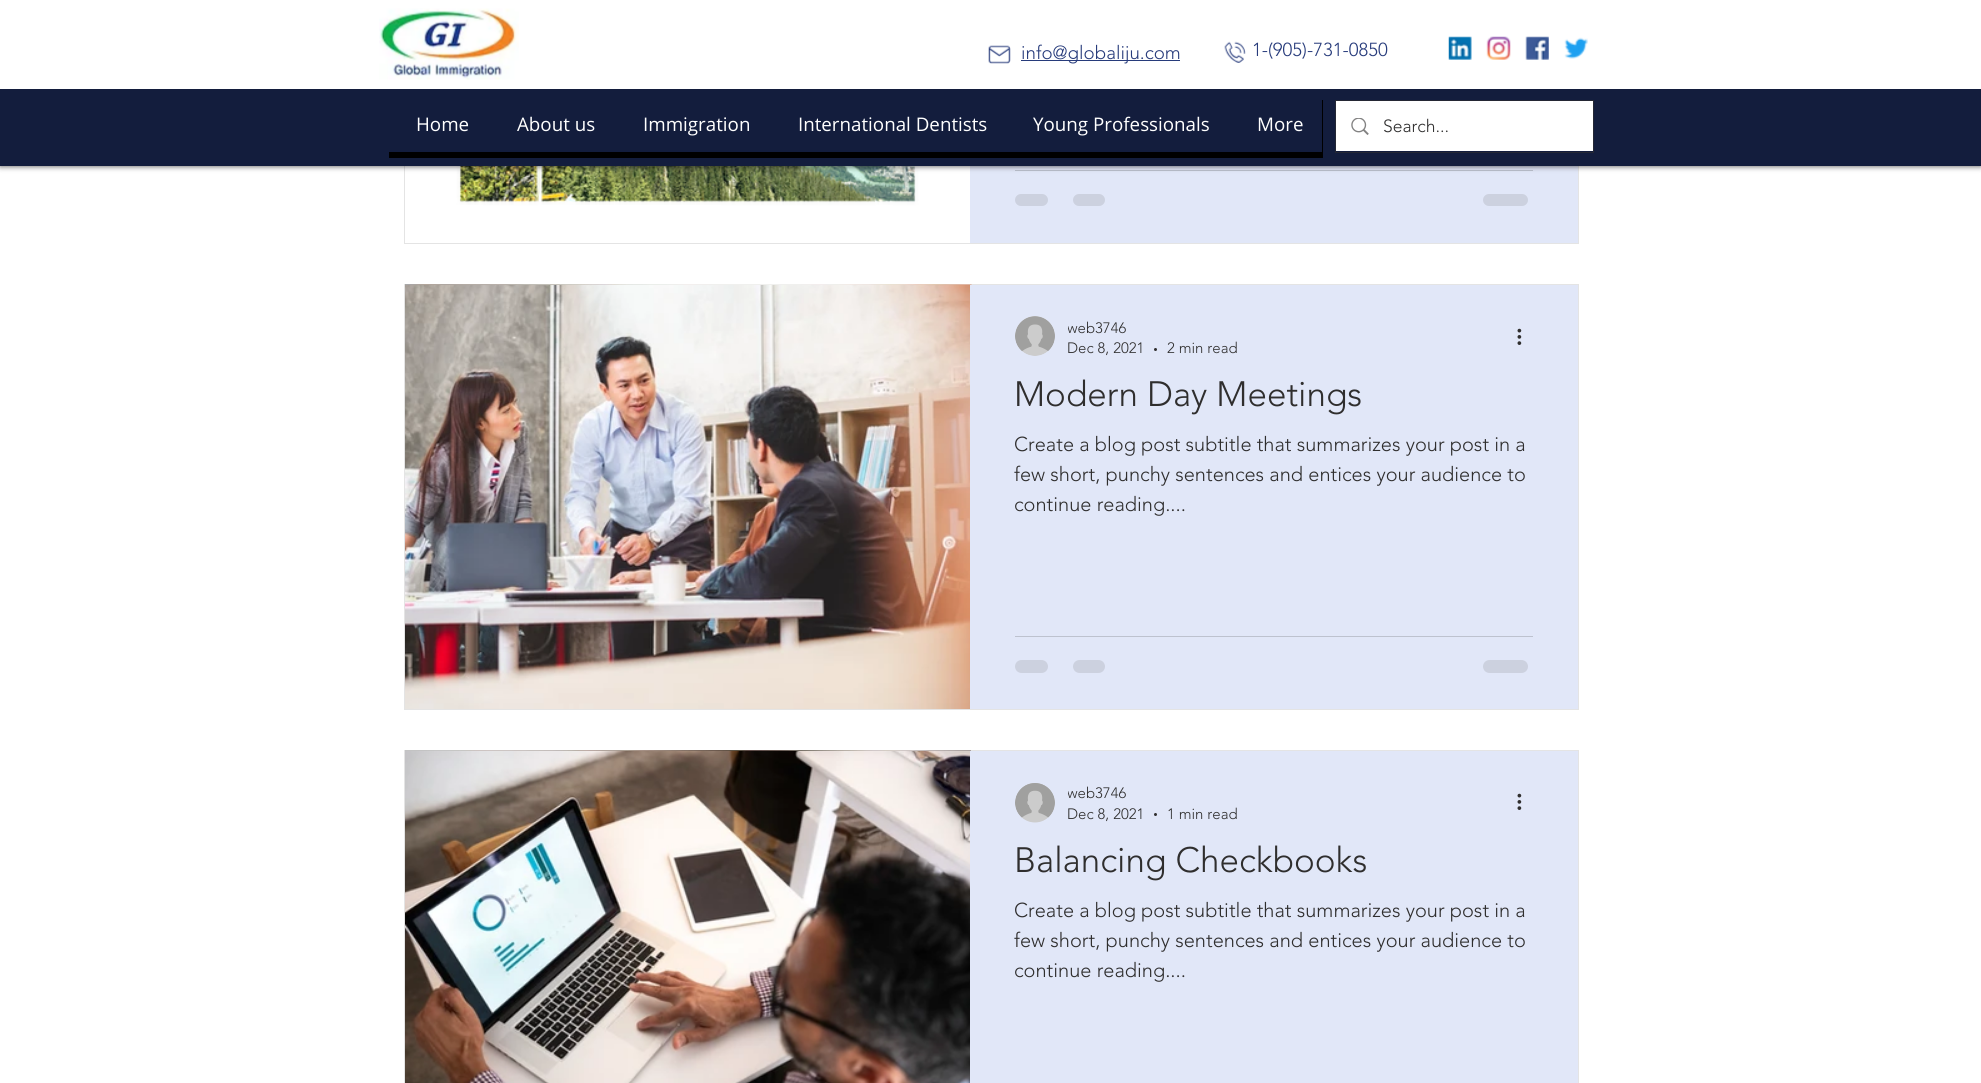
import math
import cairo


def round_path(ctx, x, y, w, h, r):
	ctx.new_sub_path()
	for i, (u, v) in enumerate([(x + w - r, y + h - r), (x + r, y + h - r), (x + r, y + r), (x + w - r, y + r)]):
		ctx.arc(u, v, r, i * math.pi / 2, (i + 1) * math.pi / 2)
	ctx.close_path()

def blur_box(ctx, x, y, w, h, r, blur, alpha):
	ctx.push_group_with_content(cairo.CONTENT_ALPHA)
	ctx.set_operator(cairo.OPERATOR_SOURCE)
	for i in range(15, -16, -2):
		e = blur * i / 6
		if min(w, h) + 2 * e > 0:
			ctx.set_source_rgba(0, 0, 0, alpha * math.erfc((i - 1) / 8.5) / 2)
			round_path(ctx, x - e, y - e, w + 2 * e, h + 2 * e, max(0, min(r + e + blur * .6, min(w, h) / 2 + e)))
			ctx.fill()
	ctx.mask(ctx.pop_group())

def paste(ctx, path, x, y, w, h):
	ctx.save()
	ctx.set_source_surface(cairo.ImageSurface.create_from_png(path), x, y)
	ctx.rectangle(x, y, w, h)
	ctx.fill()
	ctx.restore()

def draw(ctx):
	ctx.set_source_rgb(1, 1, 1)
	ctx.paint()
	ctx.rectangle(404.5, -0.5, 1174, 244)
	ctx.set_source_rgb(0.894, 0.894, 0.894)
	ctx.set_line_width(1)
	ctx.stroke()
	paste(ctx, 'media/9.png', 405, 166, 565, 76)
	ctx.set_source_rgb(0.882, 0.906, 0.969)
	ctx.rectangle(970, 166, 608, 77)
	ctx.fill()
	ctx.set_source_rgb(0.741, 0.761, 0.812)
	ctx.rectangle(1015, 170, 518, 1)
	ctx.fill()
	ctx.set_source_rgb(0, 0, 0)
	blur_box(ctx, 0, 0, 1981, 166, 0, 3, 0.7)
	ctx.set_source_rgb(1, 1, 1)
	ctx.rectangle(0, 0, 1981, 89)
	ctx.fill()
	paste(ctx, 'media/1.png', 379, 8, 140, 72)
	paste(ctx, 'media/2.png', 988, 45, 23, 19)
	ctx.set_source_rgb(0.153, 0.231, 0.482)
	ctx.rectangle(1021, 60, 159, 1)
	ctx.fill()
	ctx.select_font_face('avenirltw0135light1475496 Light')
	ctx.set_font_size(18.75)
	ctx.move_to(1021, 59)
	ctx.show_text('info@globaliju.com')
	paste(ctx, 'media/3.png', 1224, 41, 22, 22)
	ctx.move_to(1252, 56)
	ctx.show_text('1-(905)-731-0850')
	paste(ctx, 'media/4.png', 1448, 36, 24, 24)
	paste(ctx, 'media/5.png', 1486, 36, 25, 24)
	paste(ctx, 'media/6.png', 1525, 36, 24, 24)
	paste(ctx, 'media/7.png', 1564, 37, 24, 22)
	ctx.set_source_rgb(0.078, 0.114, 0.239)
	ctx.rectangle(0, 89, 1981, 77)
	ctx.fill()
	ctx.set_source_rgb(0, 0, 0)
	ctx.new_path()
	ctx.move_to(389, 152)
	ctx.line_to(389, 158)
	ctx.line_to(1323, 158)
	ctx.line_to(1323, 100)
	ctx.line_to(1322, 100)
	ctx.line_to(1322, 152)
	ctx.close_path()
	ctx.fill()
	ctx.select_font_face('Open Sans')
	ctx.set_source_rgb(1, 1, 1)
	for x, y, s in [
		(416, 131, 'Home'),
		(517, 131, 'About us'),
		(643, 131, 'Immigration'),
		(798, 131, 'International Dentists'),
		(1033, 131, 'Young Professionals'),
		(1257, 131, 'More'),
	]:
		ctx.move_to(x, y)
		ctx.show_text(s)
	ctx.rectangle(1335.5, 100.5, 258, 52)
	ctx.set_source_rgb(0.141, 0.153, 0.204)
	ctx.stroke()
	ctx.set_source_rgb(1, 1, 1)
	ctx.rectangle(1336, 101, 257, 50)
	ctx.fill()
	paste(ctx, 'media/8.png', 1351, 118, 18, 17)
	ctx.select_font_face('avenirltw0135light1475496 Light')
	ctx.set_font_size(17.5)
	ctx.set_source_rgb(0.184, 0.18, 0.18)
	ctx.move_to(1383, 132)
	ctx.show_text('Search...')
	ctx.set_source_rgb(0.8, 0.82, 0.875)
	round_path(ctx, 1015, 194, 33, 12, 6)
	ctx.fill()
	round_path(ctx, 1073, 194, 32, 12, 6)
	ctx.fill()
	round_path(ctx, 1483, 194, 45, 12, 6)
	ctx.fill()
	ctx.rectangle(404.5, 284.5, 1174, 425)
	ctx.set_source_rgb(0.894, 0.894, 0.894)
	ctx.stroke()
	paste(ctx, 'media/10.png', 405, 284, 567, 1)
	paste(ctx, 'media/11.png', 405, 285, 565, 424)
	ctx.set_source_rgb(0.882, 0.906, 0.969)
	ctx.rectangle(970, 285, 608, 424)
	ctx.fill()
	paste(ctx, 'media/12.png', 1015, 316, 40, 40)
	ctx.save()
	ctx.rectangle(1068, 319, 58, 17)
	ctx.clip()
	ctx.set_font_size(15)
	ctx.set_source_rgb(0.184, 0.18, 0.18)
	ctx.move_to(1067, 333)
	ctx.show_text('web3746')
	ctx.restore()
	ctx.set_font_size(15)
	ctx.set_source_rgb(0.184, 0.18, 0.18)
	ctx.move_to(1067, 353)
	ctx.show_text('Dec 8, 2021')
	ctx.new_path()
	ctx.arc(1155.5, 349.5, 1.5, 0, 2 * math.pi)
	ctx.fill()
	ctx.move_to(1167, 353)
	ctx.show_text('2 min read')
	paste(ctx, 'media/13.png', 1517, 328, 5, 17)
	ctx.set_font_size(35)
	ctx.move_to(1014, 406)
	ctx.show_text('Modern Day Meetings')
	ctx.set_font_size(20)
	for x, y, s in [
		(1014, 451, 'Create a blog post subtitle that summarizes your post in a'),
		(1014, 481, 'few short, punchy sentences and entices your audience to'),
		(1014, 511, 'continue reading....'),
	]:
		ctx.move_to(x, y)
		ctx.show_text(s)
	ctx.set_source_rgb(0.741, 0.761, 0.812)
	ctx.rectangle(1015, 636, 518, 1)
	ctx.fill()
	ctx.set_source_rgb(0.8, 0.82, 0.875)
	round_path(ctx, 1015, 660, 33, 13, 6.5)
	ctx.fill()
	round_path(ctx, 1073, 660, 32, 13, 6.5)
	ctx.fill()
	round_path(ctx, 1483, 660, 45, 13, 6.5)
	ctx.fill()
	ctx.rectangle(404.5, 750.5, 1174, 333)
	ctx.set_source_rgb(0.894, 0.894, 0.894)
	ctx.stroke()
	paste(ctx, 'media/14.png', 405, 750, 566, 1)
	paste(ctx, 'media/15.png', 405, 751, 565, 332)
	ctx.set_source_rgb(0.882, 0.906, 0.969)
	ctx.rectangle(970, 751, 608, 332)
	ctx.fill()
	paste(ctx, 'media/16.png', 1015, 783, 40, 40)
	ctx.save()
	ctx.rectangle(1068, 785, 58, 18)
	ctx.clip()
	ctx.set_font_size(15)
	ctx.set_source_rgb(0.184, 0.18, 0.18)
	ctx.move_to(1067, 798)
	ctx.show_text('web3746')
	ctx.restore()
	ctx.set_font_size(15)
	ctx.set_source_rgb(0.184, 0.18, 0.18)
	ctx.move_to(1067, 819)
	ctx.show_text('Dec 8, 2021')
	ctx.new_path()
	ctx.arc(1155.5, 814.5, 1.5, 0, 2 * math.pi)
	ctx.fill()
	ctx.move_to(1167, 819)
	ctx.show_text('1 min read')
	paste(ctx, 'media/13.png', 1517, 793, 5, 17)
	ctx.set_font_size(35)
	ctx.move_to(1014, 872)
	ctx.show_text('Balancing Checkbooks')
	ctx.set_font_size(20)
	for x, y, s in [
		(1014, 917, 'Create a blog post subtitle that summarizes your post in a'),
		(1014, 947, 'few short, punchy sentences and entices your audience to'),
		(1014, 977, 'continue reading....'),
	]:
		ctx.move_to(x, y)
		ctx.show_text(s)


surface = cairo.ImageSurface(cairo.FORMAT_RGB24, 1981, 1083)
ctx = cairo.Context(surface)
options = cairo.FontOptions()
options.set_hint_metrics(cairo.HINT_METRICS_OFF)
options.set_hint_style(cairo.HINT_STYLE_NONE)
ctx.set_font_options(options)
ctx.set_miter_limit(4)
draw(ctx)
surface.write_to_png('image.png')
